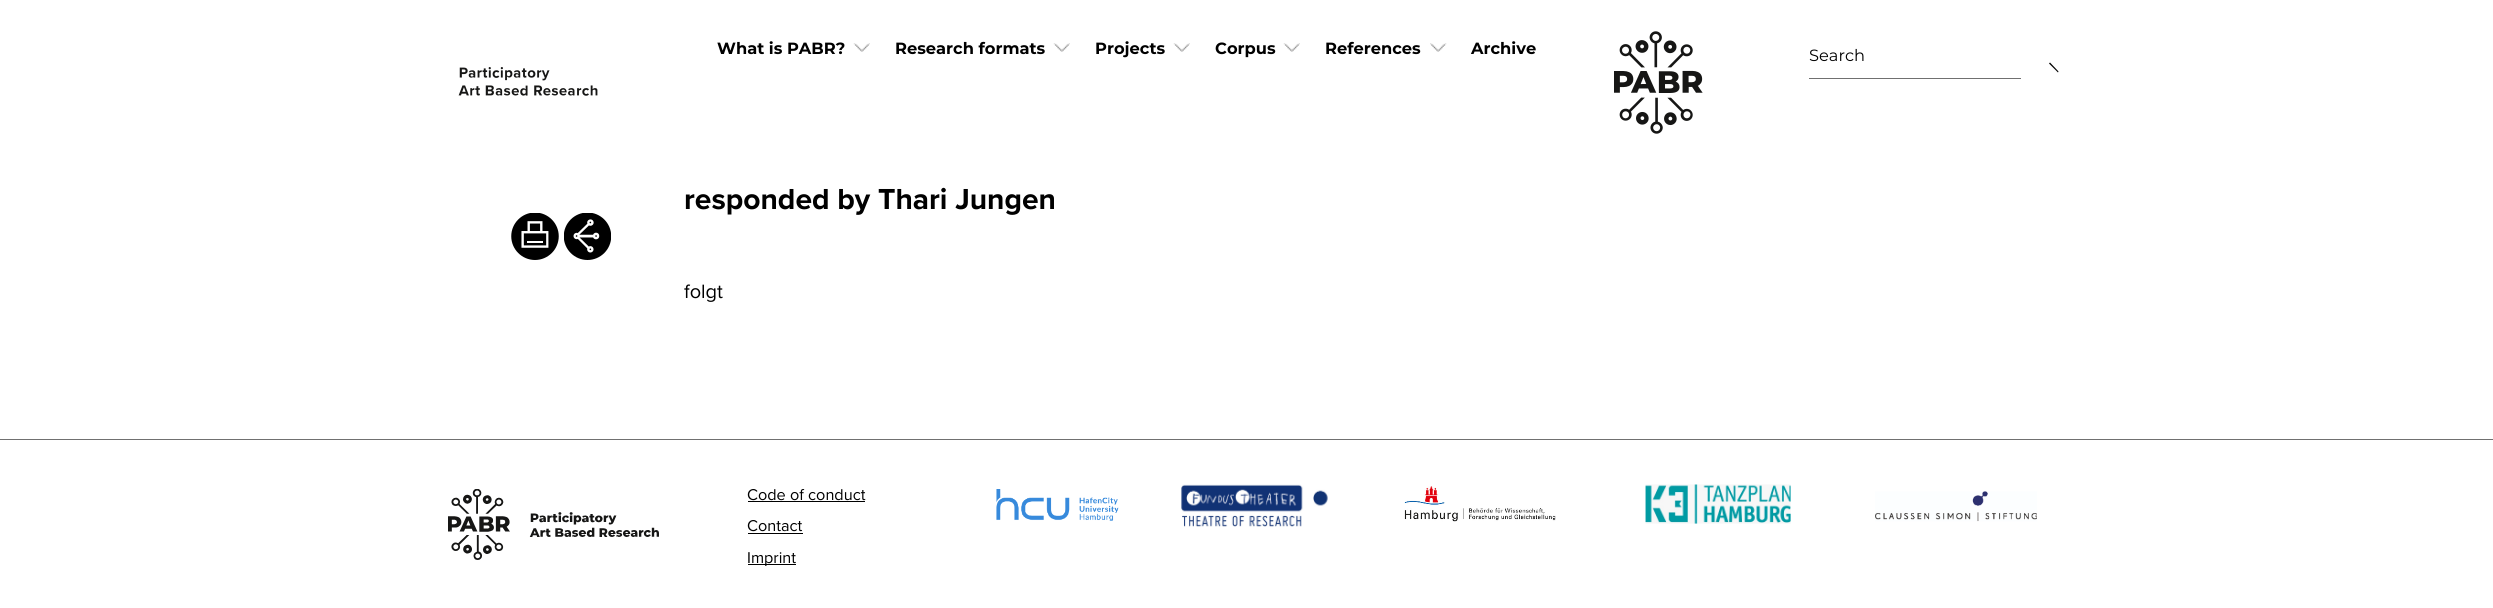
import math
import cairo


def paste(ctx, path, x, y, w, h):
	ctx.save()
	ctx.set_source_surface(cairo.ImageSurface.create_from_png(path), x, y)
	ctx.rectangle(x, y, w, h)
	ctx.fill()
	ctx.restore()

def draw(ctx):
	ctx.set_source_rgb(1, 1, 1)
	ctx.paint()
	ctx.select_font_face('Montserrat', cairo.FONT_SLANT_NORMAL, cairo.FONT_WEIGHT_BOLD)
	ctx.set_font_size(16.25)
	ctx.set_source_rgb(0, 0, 0)
	ctx.move_to(717, 54)
	ctx.show_text('What is PABR?')
	paste(ctx, 'media/1.png', 853, 43, 17, 9)
	ctx.move_to(895, 54)
	ctx.show_text('Research formats')
	paste(ctx, 'media/2.png', 1053, 43, 17, 9)
	ctx.move_to(1095, 54)
	ctx.show_text('Projects')
	paste(ctx, 'media/1.png', 1173, 43, 17, 9)
	ctx.move_to(1215, 54)
	ctx.show_text('Corpus')
	paste(ctx, 'media/2.png', 1283, 43, 17, 9)
	ctx.move_to(1325, 54)
	ctx.show_text('References')
	paste(ctx, 'media/3.png', 1430, 43, 17, 9)
	ctx.move_to(1471, 54)
	ctx.show_text('Archive')
	paste(ctx, 'media/4.png', 1614, 31, 89, 103)
	ctx.set_source_rgb(0.439, 0.439, 0.439)
	ctx.rectangle(1809, 78, 212, 1)
	ctx.fill()
	ctx.select_font_face('Montserrat')
	ctx.set_source_rgb(0, 0, 0)
	ctx.move_to(1809, 61)
	ctx.show_text('Search')
	ctx.new_path()
	ctx.move_to(2049, 63.5)
	ctx.line_to(2050, 62.5)
	ctx.line_to(2058.5, 71.5)
	ctx.line_to(2058, 72.5)
	ctx.close_path()
	ctx.fill()
	paste(ctx, 'media/5.png', 458, 67, 140, 29)
	ctx.select_font_face('Proxima Nova', cairo.FONT_SLANT_NORMAL, cairo.FONT_WEIGHT_BOLD)
	ctx.set_font_size(30)
	ctx.move_to(684, 209)
	ctx.show_text('responded by Thari Jungen')
	paste(ctx, 'media/6.png', 511, 213, 48, 47)
	paste(ctx, 'media/7.png', 564, 213, 47, 47)
	ctx.select_font_face('Proxima Nova')
	ctx.set_font_size(20)
	ctx.move_to(684, 298)
	ctx.show_text('folgt')
	ctx.set_source_rgb(0.439, 0.439, 0.439)
	ctx.rectangle(0, 439, 2493, 1)
	ctx.fill()
	paste(ctx, 'media/8.png', 448, 489, 211, 71)
	ctx.set_font_size(16.25)
	ctx.set_source_rgb(0, 0, 0)
	ctx.move_to(747, 500)
	ctx.show_text('Code of conduct')
	ctx.rectangle(748, 501, 117, 1)
	ctx.fill()
	ctx.move_to(747, 531)
	ctx.show_text('Contact')
	ctx.rectangle(748, 533, 55, 1)
	ctx.fill()
	ctx.rectangle(748, 564, 48, 1)
	ctx.fill()
	ctx.move_to(747, 563)
	ctx.show_text('Imprint')
	paste(ctx, 'media/9.png', 996, 489, 123, 32)
	paste(ctx, 'media/10.png', 1181, 484, 147, 43)
	paste(ctx, 'media/11.png', 1404, 486, 152, 36)
	paste(ctx, 'media/12.png', 1645, 484, 146, 40)
	paste(ctx, 'media/13.png', 1875, 491, 162, 31)


surface = cairo.ImageSurface(cairo.FORMAT_RGB24, 2493, 608)
ctx = cairo.Context(surface)
options = cairo.FontOptions()
options.set_hint_metrics(cairo.HINT_METRICS_OFF)
options.set_hint_style(cairo.HINT_STYLE_NONE)
ctx.set_font_options(options)
ctx.set_miter_limit(4)
draw(ctx)
surface.write_to_png('image.png')
